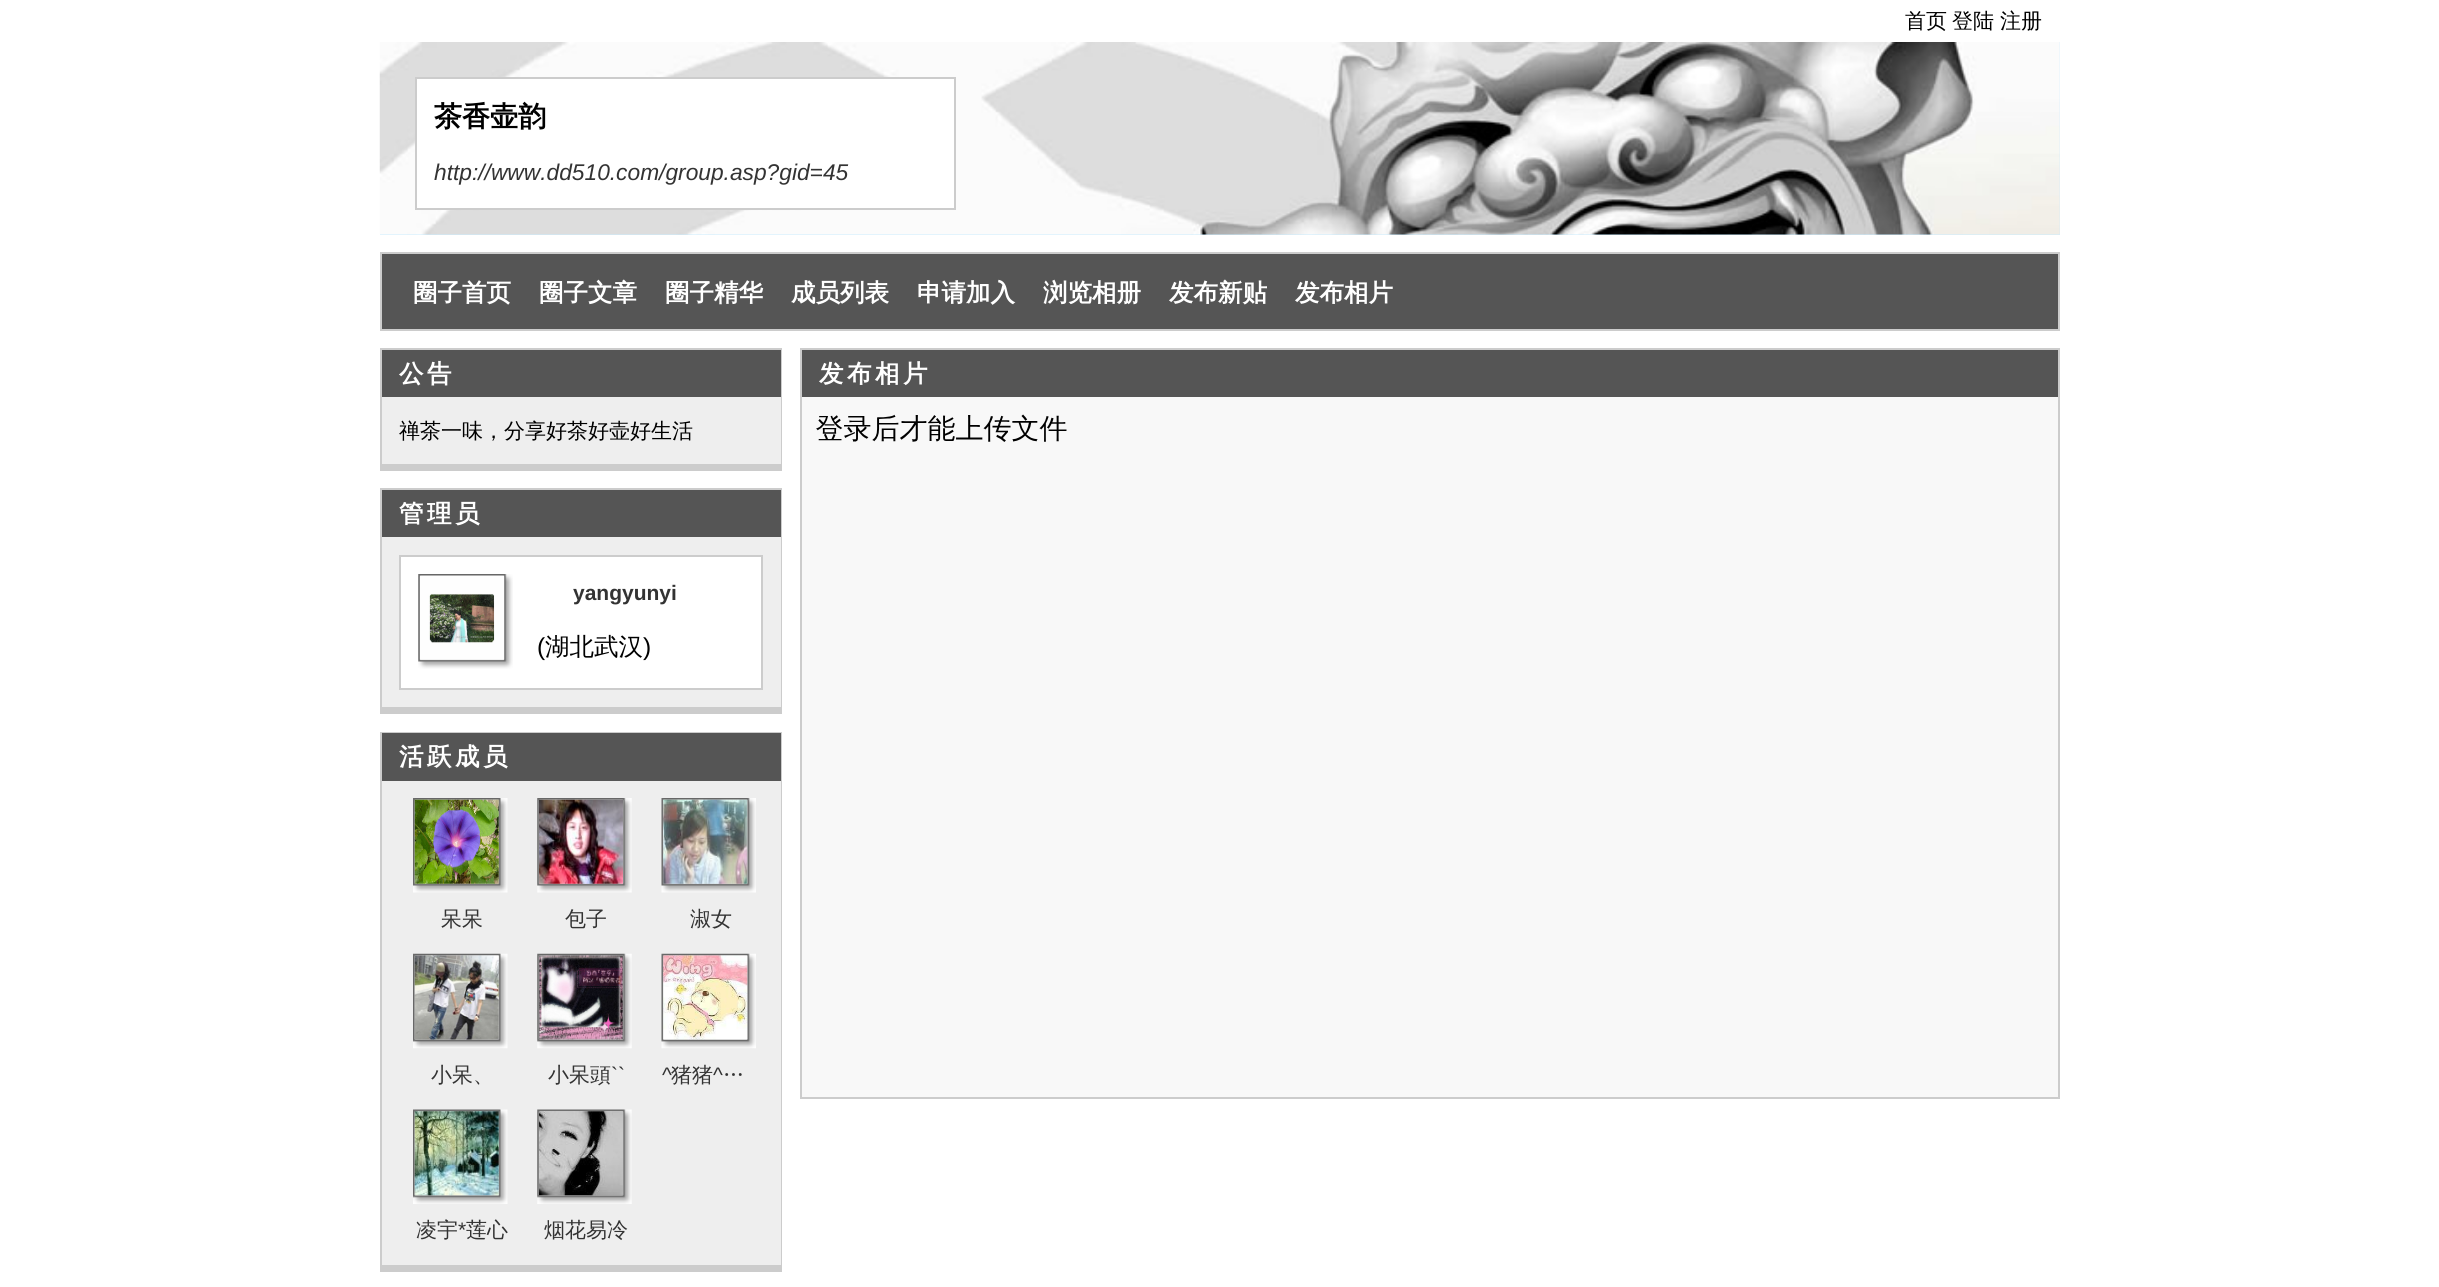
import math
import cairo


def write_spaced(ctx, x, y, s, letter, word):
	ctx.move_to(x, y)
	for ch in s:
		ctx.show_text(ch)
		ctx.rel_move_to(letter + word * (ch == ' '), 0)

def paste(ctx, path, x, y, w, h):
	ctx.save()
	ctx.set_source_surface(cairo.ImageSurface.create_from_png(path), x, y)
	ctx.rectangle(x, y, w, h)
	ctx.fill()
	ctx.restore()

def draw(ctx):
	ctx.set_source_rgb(1, 1, 1)
	ctx.paint()
	ctx.select_font_face('WenQuanYi Zen Hei Medium')
	ctx.set_font_size(21)
	ctx.set_source_rgb(0, 0, 0)
	for x, y, s in [
		(1905, 28, '首页'),
		(1952, 28, '登陆'),
		(2000, 28, '注册'),
	]:
		ctx.move_to(x, y)
		ctx.show_text(s)
	ctx.set_source_rgb(0.796, 0.925, 1)
	ctx.rectangle(380, 42, 1680, 193)
	ctx.fill()
	paste(ctx, 'media/1.png', 379, 42, 1681, 193)
	ctx.set_source_rgb(1, 1, 1)
	ctx.rectangle(416, 78, 539, 131)
	ctx.fill_preserve()
	ctx.set_source_rgb(0.8, 0.8, 0.8)
	ctx.stroke()
	ctx.select_font_face('WenQuanYi Zen Hei', cairo.FONT_SLANT_NORMAL, cairo.FONT_WEIGHT_BOLD)
	ctx.set_font_size(28)
	ctx.set_source_rgb(0, 0, 0)
	ctx.move_to(434, 126)
	ctx.show_text('茶香壶韵')
	ctx.select_font_face('Liberation Sans', cairo.FONT_SLANT_ITALIC)
	ctx.set_font_size(22.75)
	ctx.set_source_rgb(0.2, 0.2, 0.2)
	ctx.move_to(434, 180)
	ctx.show_text('http://www.dd510.com/group.asp?gid=45')
	ctx.set_source_rgb(0.333, 0.333, 0.333)
	ctx.rectangle(381, 253, 1678, 77)
	ctx.fill_preserve()
	ctx.set_source_rgb(0.8, 0.8, 0.8)
	ctx.stroke()
	ctx.select_font_face('WenQuanYi Zen Hei', cairo.FONT_SLANT_NORMAL, cairo.FONT_WEIGHT_BOLD)
	ctx.set_font_size(24.5)
	ctx.set_source_rgb(1, 1, 1)
	for x, y, s in [
		(413, 301, '圈子首页'),
		(539, 301, '圈子文章'),
		(665, 301, '圈子精华'),
		(791, 301, '成员列表'),
		(917, 301, '申请加入'),
		(1043, 301, '浏览相册'),
		(1169, 301, '发布新贴'),
		(1295, 301, '发布相片'),
	]:
		ctx.move_to(x, y)
		ctx.show_text(s)
	ctx.set_source_rgb(0.933, 0.933, 0.933)
	ctx.rectangle(382, 397, 399, 67)
	ctx.fill()
	ctx.set_source_rgb(0.8, 0.8, 0.8)
	ctx.rectangle(380, 348, 402, 2)
	ctx.rectangle(781, 348, 1, 123)
	ctx.rectangle(380, 464, 402, 7)
	ctx.rectangle(380, 348, 2, 123)
	ctx.fill()
	ctx.set_source_rgb(0.333, 0.333, 0.333)
	ctx.rectangle(382, 350, 399, 47)
	ctx.fill()
	ctx.set_source_rgb(1, 1, 1)
	write_spaced(ctx, 399, 382, '公告', 3.5, 0)
	ctx.select_font_face('WenQuanYi Zen Hei Medium')
	ctx.set_font_size(21)
	ctx.set_source_rgb(0, 0, 0)
	ctx.move_to(399, 438)
	ctx.show_text('禅茶一味，分享好茶好壶好生活')
	ctx.set_source_rgb(0.933, 0.933, 0.933)
	ctx.rectangle(382, 537, 399, 170)
	ctx.fill()
	ctx.set_source_rgb(0.8, 0.8, 0.8)
	ctx.rectangle(380, 488, 402, 2)
	ctx.rectangle(781, 488, 1, 226)
	ctx.rectangle(380, 707, 402, 7)
	ctx.rectangle(380, 488, 2, 226)
	ctx.fill()
	ctx.set_source_rgb(0.333, 0.333, 0.333)
	ctx.rectangle(382, 490, 399, 47)
	ctx.fill()
	ctx.select_font_face('WenQuanYi Zen Hei', cairo.FONT_SLANT_NORMAL, cairo.FONT_WEIGHT_BOLD)
	ctx.set_font_size(24.5)
	ctx.set_source_rgb(1, 1, 1)
	write_spaced(ctx, 399, 522, '管理员', 3.5, 0)
	ctx.rectangle(400, 556, 362, 133)
	ctx.fill_preserve()
	ctx.set_source_rgb(0.8, 0.8, 0.8)
	ctx.stroke()
	paste(ctx, 'media/2.png', 418, 574, 95, 95)
	paste(ctx, 'media/3.png', 420, 575, 84, 85)
	ctx.select_font_face('Liberation Sans', cairo.FONT_SLANT_NORMAL, cairo.FONT_WEIGHT_BOLD)
	ctx.set_font_size(21)
	ctx.set_source_rgb(0.2, 0.2, 0.2)
	ctx.move_to(573, 600)
	ctx.show_text('yangyunyi')
	ctx.select_font_face('Liberation Sans')
	ctx.set_font_size(24.5)
	ctx.set_source_rgb(0, 0, 0)
	ctx.move_to(537, 655)
	ctx.show_text('(')
	ctx.select_font_face('WenQuanYi Zen Hei Medium')
	ctx.move_to(545, 655)
	ctx.show_text('湖北武汉')
	ctx.select_font_face('Liberation Sans')
	ctx.move_to(643, 655)
	ctx.show_text(')')
	ctx.set_source_rgb(0.933, 0.933, 0.933)
	ctx.rectangle(382, 781, 399, 484)
	ctx.fill()
	ctx.set_source_rgb(0.8, 0.8, 0.8)
	ctx.rectangle(380, 732, 402, 1)
	ctx.rectangle(781, 732, 1, 540)
	ctx.rectangle(380, 1265, 402, 7)
	ctx.rectangle(380, 732, 2, 540)
	ctx.fill()
	ctx.set_source_rgb(0.333, 0.333, 0.333)
	ctx.rectangle(382, 733, 399, 48)
	ctx.fill()
	ctx.select_font_face('WenQuanYi Zen Hei', cairo.FONT_SLANT_NORMAL, cairo.FONT_WEIGHT_BOLD)
	ctx.set_source_rgb(1, 1, 1)
	write_spaced(ctx, 399, 765, '活跃成员', 3.5, 0)
	paste(ctx, 'media/4.png', 413, 798, 95, 95)
	paste(ctx, 'media/5.png', 414, 799, 85, 85)
	ctx.select_font_face('WenQuanYi Zen Hei Medium')
	ctx.set_font_size(21)
	ctx.set_source_rgb(0.2, 0.2, 0.2)
	ctx.move_to(441, 926)
	ctx.show_text('呆呆')
	paste(ctx, 'media/6.png', 537, 798, 95, 95)
	paste(ctx, 'media/7.png', 539, 799, 84, 85)
	ctx.move_to(565, 926)
	ctx.show_text('包子')
	paste(ctx, 'media/8.png', 661, 798, 95, 95)
	paste(ctx, 'media/9.png', 663, 799, 85, 85)
	ctx.move_to(690, 926)
	ctx.show_text('淑女')
	paste(ctx, 'media/10.png', 413, 953, 95, 96)
	paste(ctx, 'media/11.png', 414, 955, 85, 85)
	ctx.move_to(431, 1082)
	ctx.show_text('小呆、')
	paste(ctx, 'media/12.png', 537, 953, 95, 96)
	paste(ctx, 'media/13.png', 539, 955, 84, 85)
	ctx.move_to(548, 1082)
	ctx.show_text('小呆頭')
	ctx.select_font_face('Liberation Sans')
	ctx.move_to(611, 1082)
	ctx.show_text('``')
	paste(ctx, 'media/14.png', 661, 953, 95, 96)
	paste(ctx, 'media/15.png', 663, 955, 85, 85)
	ctx.move_to(662, 1082)
	ctx.show_text('^')
	ctx.select_font_face('WenQuanYi Zen Hei Medium')
	ctx.move_to(671, 1082)
	ctx.show_text('猪猪')
	ctx.select_font_face('Liberation Sans')
	ctx.move_to(713, 1082)
	ctx.show_text('^')
	ctx.select_font_face('WenQuanYi Zen Hei Medium')
	ctx.move_to(723, 1082)
	ctx.show_text('…')
	paste(ctx, 'media/16.png', 413, 1109, 95, 95)
	paste(ctx, 'media/17.png', 414, 1111, 85, 85)
	ctx.move_to(416, 1237)
	ctx.show_text('凌宇')
	ctx.select_font_face('Liberation Sans')
	ctx.move_to(458, 1237)
	ctx.show_text('*')
	ctx.select_font_face('WenQuanYi Zen Hei Medium')
	ctx.move_to(466, 1237)
	ctx.show_text('莲心')
	paste(ctx, 'media/18.png', 537, 1109, 95, 95)
	paste(ctx, 'media/19.png', 539, 1111, 84, 85)
	ctx.move_to(544, 1237)
	ctx.show_text('烟花易冷')
	ctx.set_source_rgb(0.969, 0.969, 0.969)
	ctx.rectangle(802, 397, 1256, 700)
	ctx.fill()
	ctx.rectangle(801, 349, 1258, 749)
	ctx.set_source_rgb(0.8, 0.8, 0.8)
	ctx.stroke()
	ctx.set_source_rgb(0.333, 0.333, 0.333)
	ctx.rectangle(802, 350, 1256, 47)
	ctx.fill()
	ctx.select_font_face('WenQuanYi Zen Hei', cairo.FONT_SLANT_NORMAL, cairo.FONT_WEIGHT_BOLD)
	ctx.set_font_size(24.5)
	ctx.set_source_rgb(1, 1, 1)
	write_spaced(ctx, 819, 382, '发布相片', 3.5, 0)
	paste(ctx, 'media/20.png', 816, 414, 251, 28)


surface = cairo.ImageSurface(cairo.FORMAT_RGB24, 2439, 1287)
ctx = cairo.Context(surface)
options = cairo.FontOptions()
options.set_hint_metrics(cairo.HINT_METRICS_OFF)
options.set_hint_style(cairo.HINT_STYLE_NONE)
ctx.set_font_options(options)
ctx.set_miter_limit(4)
draw(ctx)
surface.write_to_png('image.png')
